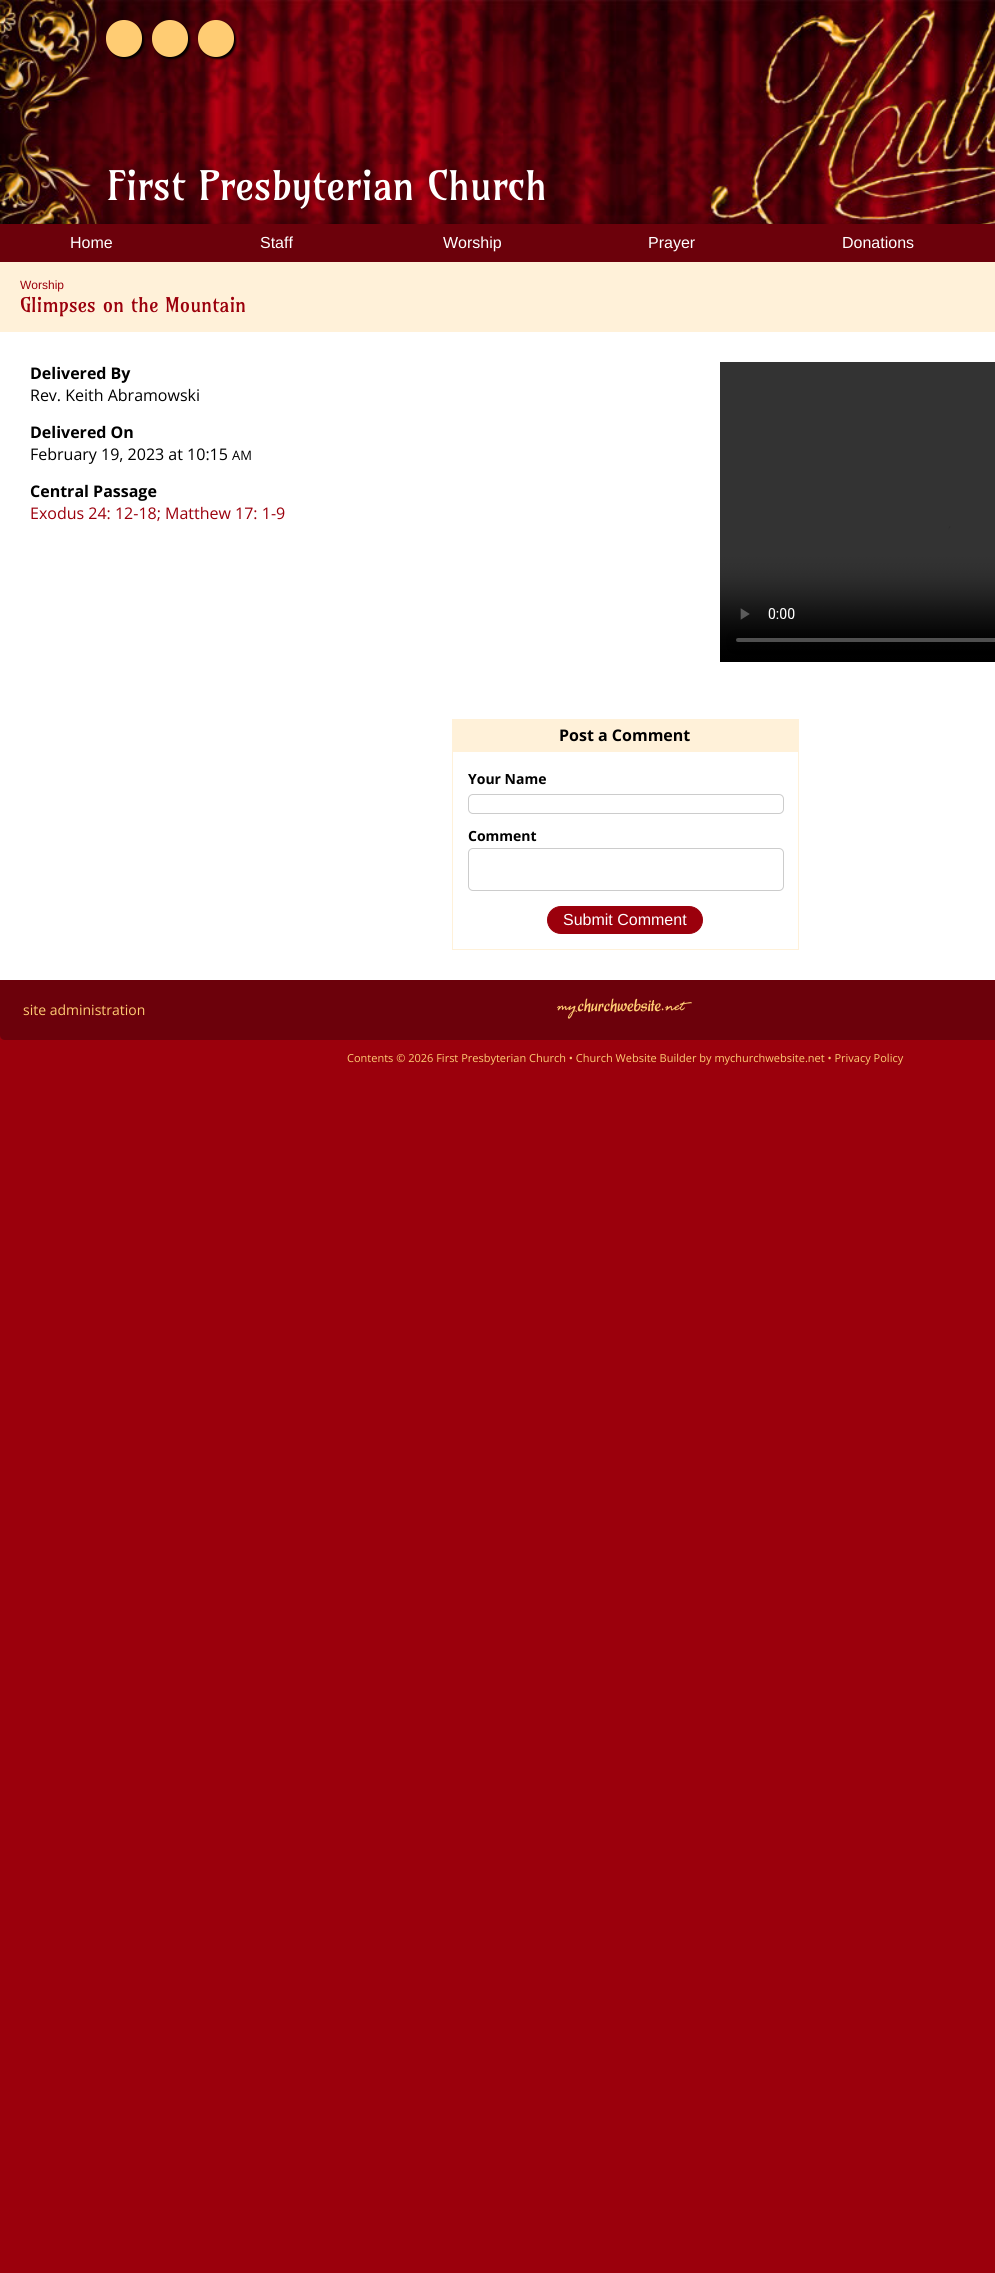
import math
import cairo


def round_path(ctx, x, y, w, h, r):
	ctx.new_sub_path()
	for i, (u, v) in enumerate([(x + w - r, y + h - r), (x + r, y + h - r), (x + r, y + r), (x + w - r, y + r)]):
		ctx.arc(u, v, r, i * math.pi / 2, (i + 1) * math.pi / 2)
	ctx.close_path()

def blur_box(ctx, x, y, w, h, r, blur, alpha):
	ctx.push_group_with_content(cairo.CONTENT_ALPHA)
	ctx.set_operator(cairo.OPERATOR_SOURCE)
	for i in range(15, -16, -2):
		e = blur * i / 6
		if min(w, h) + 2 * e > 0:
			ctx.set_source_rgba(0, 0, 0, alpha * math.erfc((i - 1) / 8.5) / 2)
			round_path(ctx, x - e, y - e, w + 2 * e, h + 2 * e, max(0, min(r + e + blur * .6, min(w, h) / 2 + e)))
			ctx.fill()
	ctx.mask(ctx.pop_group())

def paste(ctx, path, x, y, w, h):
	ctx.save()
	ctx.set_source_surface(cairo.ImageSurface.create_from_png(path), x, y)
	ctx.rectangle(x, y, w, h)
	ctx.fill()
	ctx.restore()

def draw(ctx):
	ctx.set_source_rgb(0.608, 0, 0.047)
	ctx.paint()
	paste(ctx, 'media/1.png', 0, 0, 995, 224)
	ctx.set_source_rgb(0, 0, 0)
	blur_box(ctx, 108, 22, 36, 37, 18, 1, 1)
	ctx.set_source_rgb(1, 0.8, 0.451)
	round_path(ctx, 106, 20, 36, 37, 18)
	ctx.fill()
	ctx.set_source_rgb(0, 0, 0)
	blur_box(ctx, 154, 22, 36, 37, 18, 1, 1)
	ctx.set_source_rgb(1, 0.8, 0.451)
	round_path(ctx, 152, 20, 36, 37, 18)
	ctx.fill()
	ctx.set_source_rgb(0, 0, 0)
	blur_box(ctx, 200, 22, 36, 37, 18, 1, 1)
	ctx.set_source_rgb(1, 0.8, 0.451)
	round_path(ctx, 198, 20, 36, 37, 18)
	ctx.fill()
	ctx.select_font_face('Amarante')
	ctx.set_font_size(40)
	ctx.set_source_rgb(1, 1, 1)
	ctx.move_to(107, 200)
	ctx.show_text('First Presbyterian Church')
	ctx.set_source_rgb(0.424, 0.004, 0.043)
	ctx.rectangle(0, 224, 995, 38)
	ctx.fill()
	ctx.select_font_face('Liberation Sans')
	ctx.set_font_size(16)
	ctx.set_source_rgb(1, 1, 1)
	for x, y, s in [
		(70, 248, 'Home'),
		(260, 248, 'Staff'),
		(443, 248, 'Worship'),
		(648, 248, 'Prayer'),
		(842, 248, 'Donations'),
	]:
		ctx.move_to(x, y)
		ctx.show_text(s)
	ctx.rectangle(0, 332, 995, 648)
	ctx.fill()
	ctx.set_source_rgb(1, 0.945, 0.851)
	ctx.rectangle(0, 262, 995, 70)
	ctx.fill()
	ctx.set_font_size(12)
	ctx.set_source_rgb(0.608, 0, 0.047)
	ctx.move_to(20, 289)
	ctx.show_text('Worship')
	ctx.select_font_face('Amarante')
	ctx.set_font_size(20)
	ctx.move_to(20, 312)
	ctx.show_text('Glimpses on the Mountain')
	ctx.select_font_face('Open Sans', cairo.FONT_SLANT_NORMAL, cairo.FONT_WEIGHT_BOLD)
	ctx.set_font_size(16)
	ctx.set_source_rgb(0, 0, 0)
	ctx.move_to(30, 379)
	ctx.show_text('Delivered By')
	ctx.select_font_face('Open Sans')
	ctx.move_to(30, 401)
	ctx.show_text('Rev. Keith Abramowski')
	paste(ctx, 'media/2.png', 720, 362, 275, 300)
	ctx.select_font_face('Open Sans', cairo.FONT_SLANT_NORMAL, cairo.FONT_WEIGHT_BOLD)
	ctx.move_to(30, 438)
	ctx.show_text('Delivered On')
	ctx.select_font_face('Open Sans')
	ctx.move_to(30, 460)
	ctx.show_text('February 19, 2023 at 10:15')
	ctx.set_font_size(13)
	ctx.move_to(232, 460)
	ctx.show_text('AM')
	ctx.select_font_face('Open Sans', cairo.FONT_SLANT_NORMAL, cairo.FONT_WEIGHT_BOLD)
	ctx.set_font_size(16)
	ctx.move_to(30, 497)
	ctx.show_text('Central Passage')
	ctx.select_font_face('Open Sans')
	ctx.set_source_rgb(0.608, 0, 0.047)
	ctx.move_to(30, 519)
	ctx.show_text('Exodus 24: 12-18; Matthew 17: 1-9')
	ctx.set_source_rgb(1, 0.945, 0.851)
	ctx.rectangle(452, 719, 347, 32)
	ctx.fill()
	ctx.select_font_face('Open Sans', cairo.FONT_SLANT_NORMAL, cairo.FONT_WEIGHT_BOLD)
	ctx.set_source_rgb(0, 0, 0)
	ctx.move_to(559, 741)
	ctx.show_text('Post a Comment')
	ctx.rectangle(452.5, 751.5, 346, 198)
	ctx.set_source_rgb(1, 0.945, 0.851)
	ctx.set_line_width(1)
	ctx.stroke()
	ctx.set_font_size(14)
	ctx.set_source_rgb(0, 0, 0)
	ctx.move_to(468, 784)
	ctx.show_text('Your Name')
	round_path(ctx, 468.5, 794.5, 315, 19, 4.5)
	ctx.set_source_rgb(0.8, 0.8, 0.8)
	ctx.stroke()
	ctx.set_source_rgb(0, 0, 0)
	ctx.move_to(468, 841)
	ctx.show_text('Comment')
	round_path(ctx, 468.5, 848.5, 315, 42, 4.5)
	ctx.set_source_rgb(0.8, 0.8, 0.8)
	ctx.stroke()
	ctx.set_source_rgb(0.608, 0, 0.047)
	round_path(ctx, 547.5, 906.5, 155, 27, 13.5)
	ctx.fill_preserve()
	ctx.stroke()
	ctx.select_font_face('Liberation Sans')
	ctx.set_font_size(16)
	ctx.set_source_rgb(1, 1, 1)
	ctx.move_to(563, 925)
	ctx.show_text('Submit Comment')
	ctx.set_source_rgb(0.424, 0.004, 0.043)
	ctx.new_path()
	ctx.move_to(0, 980)
	ctx.line_to(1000, 980)
	ctx.line_to(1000, 1035)
	ctx.curve_to(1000, 1038, 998, 1040, 995, 1040)
	ctx.line_to(5, 1040)
	ctx.curve_to(2, 1040, 0, 1038, 0, 1035)
	ctx.close_path()
	ctx.fill()
	ctx.select_font_face('Open Sans')
	ctx.set_font_size(14)
	ctx.set_source_rgb(1, 0.8, 0.451)
	ctx.move_to(23, 1015)
	ctx.show_text('site administration')
	paste(ctx, 'media/3.png', 557, 998, 135, 21)
	ctx.set_font_size(11)
	ctx.move_to(347, 1062)
	ctx.show_text('Contents © 2026 First Presbyterian Church • Church Website Builder by mychurchwebsite.net • Privacy Policy')


surface = cairo.ImageSurface(cairo.FORMAT_RGB24, 995, 2273)
ctx = cairo.Context(surface)
options = cairo.FontOptions()
options.set_hint_metrics(cairo.HINT_METRICS_OFF)
options.set_hint_style(cairo.HINT_STYLE_NONE)
ctx.set_font_options(options)
ctx.set_miter_limit(4)
draw(ctx)
surface.write_to_png('image.png')
